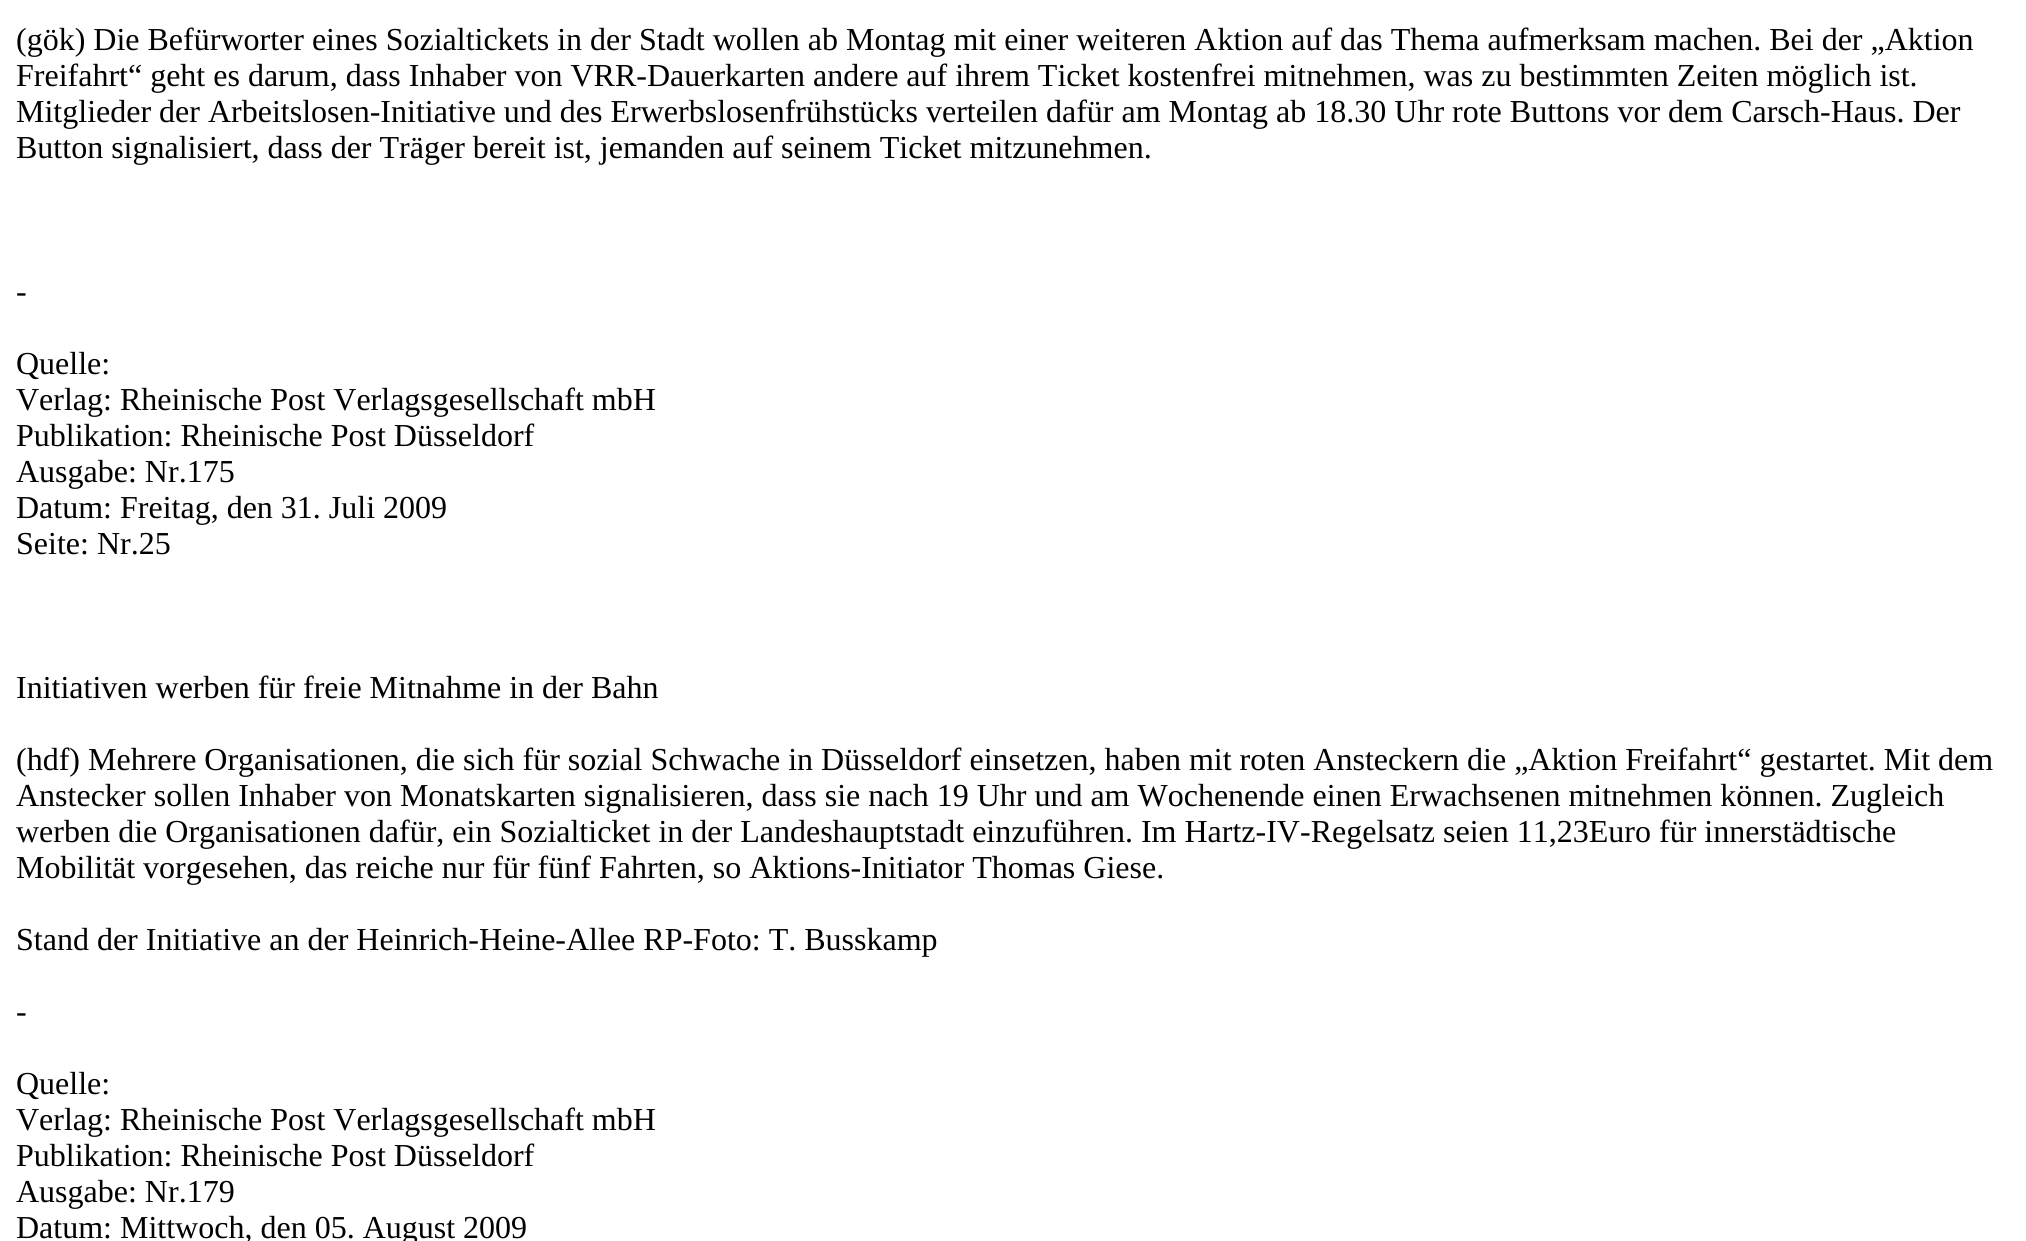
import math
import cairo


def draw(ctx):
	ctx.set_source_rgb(1, 1, 1)
	ctx.paint()
	ctx.select_font_face('Liberation Serif')
	ctx.set_font_size(32)
	ctx.set_source_rgb(0, 0, 0)
	for x, y, s in [
		(16, 50, '(gök) Die Befürworter eines Sozialtickets in der Stadt wollen ab Montag mit einer weiteren Aktion auf das Thema aufmerksam machen. Bei der „Aktion'),
		(16, 86, 'Freifahrt“ geht es darum, dass Inhaber von VRR-Dauerkarten andere auf ihrem Ticket kostenfrei mitnehmen, was zu bestimmten Zeiten möglich ist.'),
		(16, 122, 'Mitglieder der Arbeitslosen-Initiative und des Erwerbslosenfrühstücks verteilen dafür am Montag ab 18.30 Uhr rote Buttons vor dem Carsch-Haus. Der'),
		(16, 158, 'Button signalisiert, dass der Träger bereit ist, jemanden auf seinem Ticket mitzunehmen.'),
		(16, 302, '-'),
		(16, 374, 'Quelle:'),
		(16, 410, 'Verlag: Rheinische Post Verlagsgesellschaft mbH'),
		(16, 446, 'Publikation: Rheinische Post Düsseldorf'),
		(16, 482, 'Ausgabe: Nr.175'),
		(16, 518, 'Datum: Freitag, den 31. Juli 2009'),
		(16, 554, 'Seite: Nr.25'),
		(16, 698, 'Initiativen werben für freie Mitnahme in der Bahn'),
		(16, 770, '(hdf) Mehrere Organisationen, die sich für sozial Schwache in Düsseldorf einsetzen, haben mit roten Ansteckern die „Aktion Freifahrt“ gestartet. Mit dem'),
		(16, 806, 'Anstecker sollen Inhaber von Monatskarten signalisieren, dass sie nach 19 Uhr und am Wochenende einen Erwachsenen mitnehmen können. Zugleich'),
		(16, 842, 'werben die Organisationen dafür, ein Sozialticket in der Landeshauptstadt einzuführen. Im Hartz-IV-Regelsatz seien 11,23Euro für innerstädtische'),
		(16, 878, 'Mobilität vorgesehen, das reiche nur für fünf Fahrten, so Aktions-Initiator Thomas Giese.'),
		(16, 950, 'Stand der Initiative an der Heinrich-Heine-Allee RP-Foto: T. Busskamp'),
		(16, 1022, '-'),
		(16, 1094, 'Quelle:'),
		(16, 1130, 'Verlag: Rheinische Post Verlagsgesellschaft mbH'),
		(16, 1166, 'Publikation: Rheinische Post Düsseldorf'),
		(16, 1202, 'Ausgabe: Nr.179'),
		(16, 1238, 'Datum: Mittwoch, den 05. August 2009'),
	]:
		ctx.move_to(x, y)
		ctx.show_text(s)


surface = cairo.ImageSurface(cairo.FORMAT_RGB24, 2026, 1241)
ctx = cairo.Context(surface)
options = cairo.FontOptions()
options.set_hint_metrics(cairo.HINT_METRICS_OFF)
options.set_hint_style(cairo.HINT_STYLE_NONE)
ctx.set_font_options(options)
ctx.set_miter_limit(4)
draw(ctx)
surface.write_to_png('image.png')
